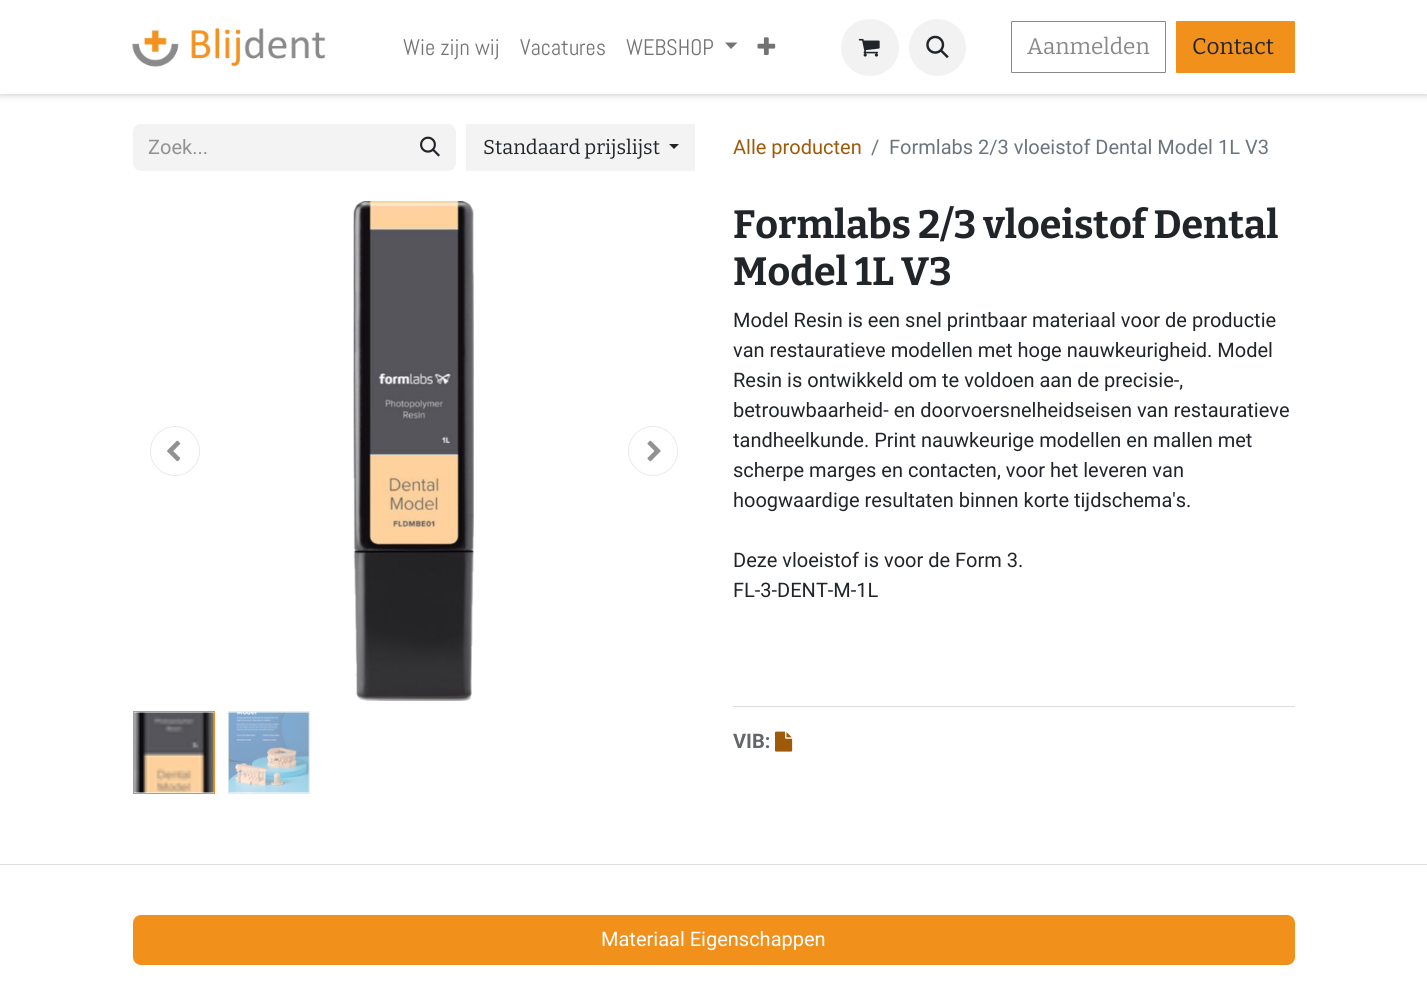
import math
import cairo


def round_path(ctx, x, y, w, h, r):
	ctx.new_sub_path()
	for i, (u, v) in enumerate([(x + w - r, y + h - r), (x + r, y + h - r), (x + r, y + r), (x + w - r, y + r)]):
		ctx.arc(u, v, r, i * math.pi / 2, (i + 1) * math.pi / 2)
	ctx.close_path()

def blur_box(ctx, x, y, w, h, r, blur, alpha):
	ctx.push_group_with_content(cairo.CONTENT_ALPHA)
	ctx.set_operator(cairo.OPERATOR_SOURCE)
	for i in range(15, -16, -2):
		e = blur * i / 6
		if min(w, h) + 2 * e > 0:
			ctx.set_source_rgba(0, 0, 0, alpha * math.erfc((i - 1) / 8.5) / 2)
			round_path(ctx, x - e, y - e, w + 2 * e, h + 2 * e, max(0, min(r + e + blur * .6, min(w, h) / 2 + e)))
			ctx.fill()
	ctx.mask(ctx.pop_group())

def paste(ctx, path, x, y, w, h):
	ctx.save()
	ctx.set_source_surface(cairo.ImageSurface.create_from_png(path), x, y)
	ctx.rectangle(x, y, w, h)
	ctx.fill()
	ctx.restore()

def draw(ctx):
	ctx.set_source_rgb(1, 1, 1)
	ctx.paint()
	ctx.set_source_rgb(0, 0, 0)
	blur_box(ctx, 0, 0, 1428, 94, 0, 4, 0.25)
	ctx.set_source_rgb(1, 1, 1)
	ctx.rectangle(0, 0, 1427, 94)
	ctx.fill()
	paste(ctx, 'media/1.png', 132, 28, 194, 39)
	ctx.select_font_face('Abel')
	ctx.set_font_size(22.5)
	ctx.set_source_rgb(0.451, 0.451, 0.451)
	for x, y, s in [
		(403, 55, 'Wie zijn wij'),
		(520, 55, 'Vacatures'),
		(626, 55, 'WEBSHOP'),
	]:
		ctx.move_to(x, y)
		ctx.show_text(s)
	ctx.new_path()
	ctx.move_to(725, 42.5)
	ctx.line_to(737.5, 42.5)
	ctx.line_to(731, 49)
	ctx.close_path()
	ctx.fill()
	paste(ctx, 'media/2.png', 757, 37, 19, 18)
	ctx.set_source_rgb(0.949, 0.949, 0.949)
	round_path(ctx, 841, 19, 58, 57, 28.5)
	ctx.fill()
	paste(ctx, 'media/3.png', 858, 38, 22, 19)
	ctx.arc(937.5, 47.5, 28.5, 0, 2 * math.pi)
	ctx.fill()
	paste(ctx, 'media/4.png', 926, 35, 23, 24)
	round_path(ctx, 1011.5, 21.5, 154, 51, 0.5)
	ctx.set_source_rgb(0.537, 0.537, 0.537)
	ctx.set_line_width(1)
	ctx.stroke()
	ctx.select_font_face('Bitter')
	ctx.move_to(1027, 54)
	ctx.show_text('Aanmelden')
	ctx.set_source_rgb(0.949, 0.565, 0.11)
	round_path(ctx, 1176.5, 21.5, 118, 51, 0.5)
	ctx.fill_preserve()
	ctx.stroke()
	ctx.set_source_rgb(0.129, 0.145, 0.161)
	ctx.move_to(1192, 54)
	ctx.show_text('Contact')
	ctx.set_source_rgb(0.953, 0.953, 0.953)
	ctx.new_path()
	ctx.move_to(141, 124)
	ctx.line_to(405, 124)
	ctx.line_to(405, 171)
	ctx.line_to(141, 171)
	ctx.curve_to(136.5, 171, 133, 167.5, 133, 163)
	ctx.line_to(133, 132)
	ctx.curve_to(133, 127.5, 136.5, 124, 141, 124)
	ctx.close_path()
	ctx.fill()
	ctx.select_font_face('Roboto')
	ctx.set_font_size(20)
	ctx.set_source_rgb(0.565, 0.573, 0.58)
	ctx.move_to(148, 154)
	ctx.show_text('Zoek...')
	ctx.set_source_rgb(0.953, 0.953, 0.953)
	ctx.new_path()
	ctx.move_to(404.5, 124.5)
	ctx.line_to(448, 124.5)
	ctx.curve_to(452, 124.5, 455.5, 128, 455.5, 132)
	ctx.line_to(455.5, 163)
	ctx.curve_to(455.5, 167, 452, 170.5, 448, 170.5)
	ctx.line_to(404.5, 170.5)
	ctx.close_path()
	ctx.fill_preserve()
	ctx.stroke()
	paste(ctx, 'media/5.png', 420, 136, 20, 21)
	round_path(ctx, 466, 124, 229, 47, 1)
	ctx.fill()
	ctx.select_font_face('Bitter')
	ctx.set_source_rgb(0.129, 0.145, 0.161)
	ctx.move_to(483, 154)
	ctx.show_text('Standaard prijslijst')
	ctx.new_path()
	ctx.move_to(669, 144)
	ctx.line_to(679, 144)
	ctx.line_to(674, 149)
	ctx.close_path()
	ctx.fill()
	ctx.select_font_face('Roboto')
	ctx.set_source_rgb(0.624, 0.353, 0.035)
	ctx.move_to(733, 154)
	ctx.show_text('Alle producten')
	ctx.set_source_rgb(0.424, 0.459, 0.49)
	ctx.move_to(871, 154)
	ctx.show_text('/')
	ctx.move_to(889, 154)
	ctx.show_text('Formlabs 2/3 vloeistof Dental Model 1L V3')
	ctx.new_path()
	ctx.arc(175, 451, 24.5, 0, 2 * math.pi)
	ctx.set_source_rgb(0.906, 0.918, 0.929)
	ctx.stroke()
	paste(ctx, 'media/6.png', 167, 440, 14, 22)
	paste(ctx, 'media/7.png', 353, 201, 121, 500)
	ctx.arc(653, 451, 24.5, 0, 2 * math.pi)
	ctx.stroke()
	paste(ctx, 'media/8.png', 647, 440, 14, 22)
	ctx.rectangle(133.5, 711.5, 81, 82)
	ctx.set_source_rgb(0.949, 0.565, 0.11)
	ctx.stroke()
	paste(ctx, 'media/9.png', 133, 712, 81, 81)
	ctx.rectangle(228.5, 711.5, 81, 82)
	ctx.set_source_rgb(0.906, 0.918, 0.929)
	ctx.stroke()
	paste(ctx, 'media/10.png', 228, 712, 81, 81)
	ctx.select_font_face('Bitter', cairo.FONT_SLANT_NORMAL, cairo.FONT_WEIGHT_BOLD)
	ctx.set_font_size(39.4)
	ctx.set_source_rgb(0.129, 0.145, 0.161)
	ctx.move_to(733, 238)
	ctx.show_text('Formlabs 2/3 vloeistof Dental')
	ctx.move_to(733, 285)
	ctx.show_text('Model 1L V3')
	ctx.select_font_face('Roboto')
	ctx.set_font_size(20)
	for x, y, s in [
		(733, 327, 'Model Resin is een snel printbaar materiaal voor de productie'),
		(733, 357, 'van restauratieve modellen met hoge nauwkeurigheid. Model'),
		(733, 387, 'Resin is ontwikkeld om te voldoen aan de precisie-,'),
		(733, 417, 'betrouwbaarheid- en doorvoersnelheidseisen van restauratieve'),
		(733, 447, 'tandheelkunde. Print nauwkeurige modellen en mallen met'),
		(733, 477, 'scherpe marges en contacten, voor het leveren van'),
		(733, 507, 'hoogwaardige resultaten binnen korte tijdschema\'s.'),
		(733, 567, 'Deze vloeistof is voor de Form 3.'),
		(733, 597, 'FL-3-DENT-M-1L'),
	]:
		ctx.move_to(x, y)
		ctx.show_text(s)
	ctx.set_source_rgb(0.871, 0.871, 0.875)
	ctx.rectangle(733, 706, 562, 1)
	ctx.fill()
	ctx.select_font_face('Roboto', cairo.FONT_SLANT_NORMAL, cairo.FONT_WEIGHT_BOLD)
	ctx.set_source_rgb(0.392, 0.4, 0.412)
	ctx.move_to(733, 748)
	ctx.show_text('VIB:')
	paste(ctx, 'media/11.png', 775, 731, 18, 21)
	ctx.set_source_rgb(0.871, 0.871, 0.875)
	ctx.rectangle(0, 864, 1427, 1)
	ctx.fill()
	ctx.set_source_rgb(0.949, 0.565, 0.11)
	round_path(ctx, 133, 915, 1162, 50, 8)
	ctx.fill()
	ctx.select_font_face('Roboto')
	ctx.set_source_rgb(1, 1, 1)
	ctx.move_to(601, 946)
	ctx.show_text('Materiaal Eigenschappen')


surface = cairo.ImageSurface(cairo.FORMAT_RGB24, 1427, 981)
ctx = cairo.Context(surface)
options = cairo.FontOptions()
options.set_hint_metrics(cairo.HINT_METRICS_OFF)
options.set_hint_style(cairo.HINT_STYLE_NONE)
ctx.set_font_options(options)
ctx.set_miter_limit(4)
draw(ctx)
surface.write_to_png('image.png')
